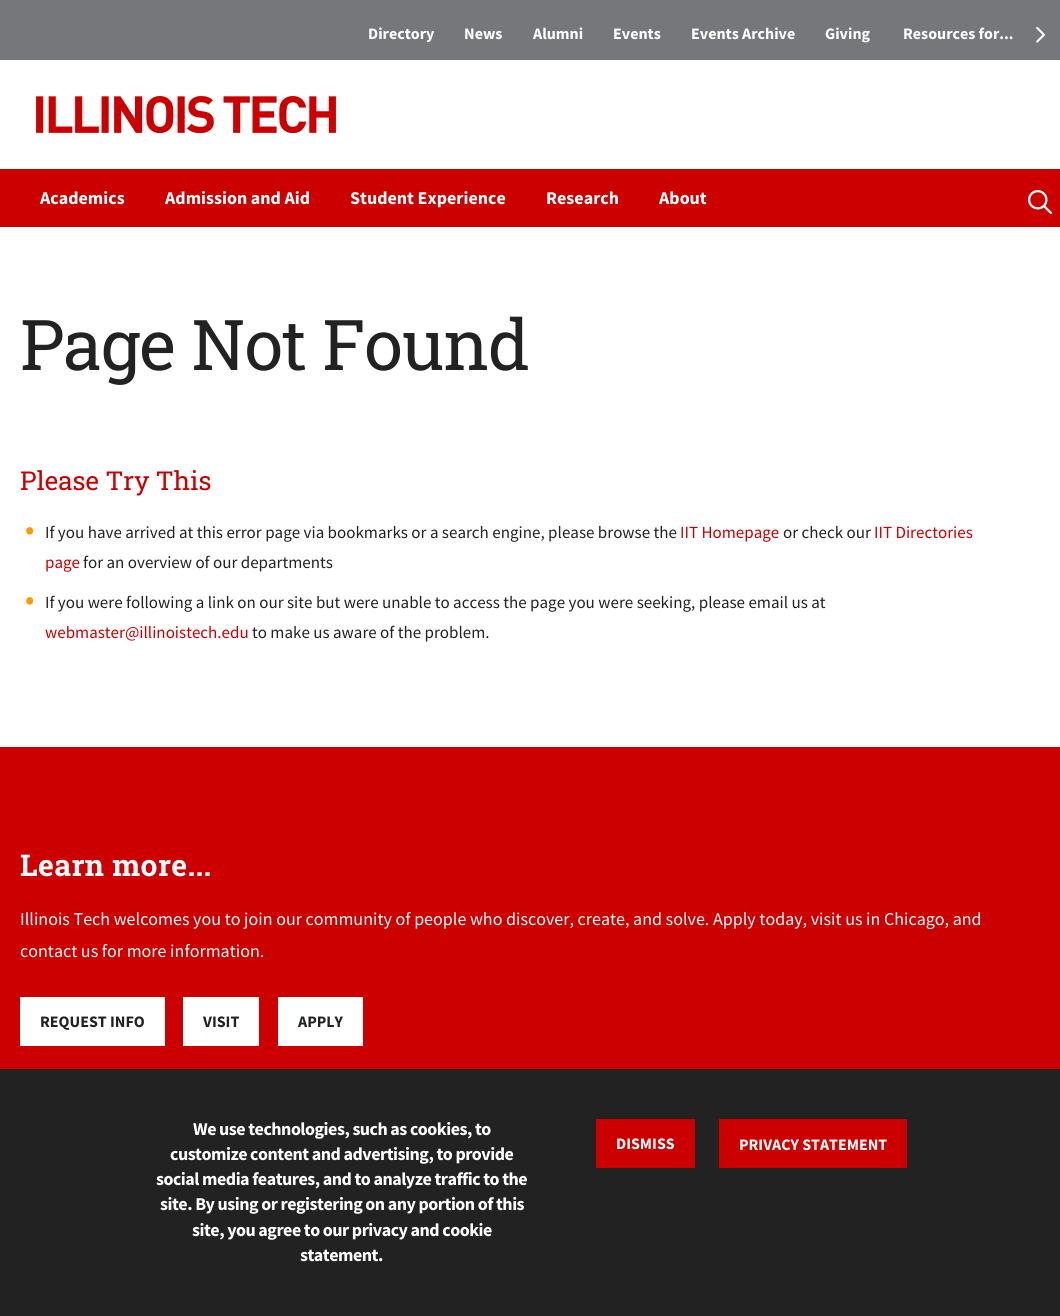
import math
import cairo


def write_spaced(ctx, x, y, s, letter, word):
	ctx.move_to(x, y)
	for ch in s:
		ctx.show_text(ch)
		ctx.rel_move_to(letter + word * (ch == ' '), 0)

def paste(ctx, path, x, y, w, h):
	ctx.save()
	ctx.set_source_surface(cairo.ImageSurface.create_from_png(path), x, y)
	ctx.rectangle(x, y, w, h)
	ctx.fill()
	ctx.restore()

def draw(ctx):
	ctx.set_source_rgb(1, 1, 1)
	ctx.paint()
	ctx.set_source_rgb(0.463, 0.467, 0.482)
	ctx.rectangle(0, 0, 1060, 60)
	ctx.fill()
	ctx.select_font_face('Source Sans Pro', cairo.FONT_SLANT_NORMAL, cairo.FONT_WEIGHT_BOLD)
	ctx.set_font_size(16)
	ctx.set_source_rgb(1, 1, 1)
	for x, y, s in [
		(368, 39, 'Directory'),
		(464, 39, 'News'),
		(533, 39, 'Alumni'),
		(613, 39, 'Events'),
		(691, 39, 'Events Archive'),
		(825, 39, 'Giving'),
		(903, 39, 'Resources for...'),
	]:
		ctx.move_to(x, y)
		ctx.show_text(s)
	paste(ctx, 'media/1.png', 1036, 26, 9, 17)
	ctx.set_source_rgb(0.8, 0, 0)
	ctx.rectangle(0, 169, 1060, 58)
	ctx.fill()
	ctx.set_font_size(18)
	ctx.set_source_rgb(1, 1, 1)
	for x, y, s in [
		(40, 204, 'Academics'),
		(165, 204, 'Admission and Aid'),
		(350, 204, 'Student Experience'),
		(546, 204, 'Research'),
		(659, 204, 'About'),
	]:
		ctx.move_to(x, y)
		ctx.show_text(s)
	paste(ctx, 'media/2.png', 1028, 190, 24, 24)
	paste(ctx, 'media/3.png', 36, 96, 300, 37)
	ctx.select_font_face('Roboto Slab')
	ctx.set_font_size(70)
	ctx.set_source_rgb(0.133, 0.133, 0.133)
	write_spaced(ctx, 20, 370, 'Page Not Found', -1, 0)
	ctx.set_font_size(26)
	ctx.set_source_rgb(0.8, 0, 0)
	ctx.move_to(20, 490)
	ctx.show_text('Please Try This')
	ctx.select_font_face('Source Sans Pro')
	ctx.set_font_size(31)
	ctx.set_source_rgb(1, 0.6, 0)
	ctx.move_to(25, 539)
	ctx.show_text('•')
	ctx.set_font_size(17)
	ctx.set_source_rgb(0.133, 0.133, 0.133)
	ctx.move_to(45, 538)
	ctx.show_text('If you have arrived at this error page via bookmarks or a search engine, please browse the')
	ctx.set_source_rgb(0.8, 0, 0)
	ctx.move_to(680, 538)
	ctx.show_text('IIT Homepage')
	ctx.set_source_rgb(0.133, 0.133, 0.133)
	ctx.move_to(783, 538)
	ctx.show_text('or check our')
	ctx.set_source_rgb(0.8, 0, 0)
	ctx.move_to(874, 538)
	ctx.show_text('IIT Directories')
	ctx.move_to(45, 568)
	ctx.show_text('page')
	ctx.set_source_rgb(0.133, 0.133, 0.133)
	ctx.move_to(83, 568)
	ctx.show_text('for an overview of our departments')
	ctx.set_font_size(31)
	ctx.set_source_rgb(1, 0.6, 0)
	ctx.move_to(25, 609)
	ctx.show_text('•')
	ctx.set_font_size(17)
	ctx.set_source_rgb(0.133, 0.133, 0.133)
	ctx.move_to(45, 608)
	ctx.show_text('If you were following a link on our site but were unable to access the page you were seeking, please email us at')
	ctx.set_source_rgb(0.8, 0, 0)
	ctx.move_to(45, 638)
	ctx.show_text('webmaster@illinoistech.edu')
	ctx.set_source_rgb(0.133, 0.133, 0.133)
	ctx.move_to(252, 638)
	ctx.show_text('to make us aware of the problem.')
	ctx.set_source_rgb(0.8, 0, 0)
	ctx.rectangle(0, 747, 1060, 322)
	ctx.fill()
	ctx.select_font_face('Roboto Slab', cairo.FONT_SLANT_NORMAL, cairo.FONT_WEIGHT_BOLD)
	ctx.set_font_size(30)
	ctx.set_source_rgb(1, 1, 1)
	write_spaced(ctx, 20, 876, 'Learn more...', 0.4, 0)
	ctx.select_font_face('Source Sans Pro')
	ctx.set_font_size(18)
	ctx.move_to(20, 925)
	ctx.show_text('Illinois Tech welcomes you to join our community of people who discover, create, and solve. Apply today, visit us in Chicago, and')
	ctx.move_to(20, 957)
	ctx.show_text('contact us for more information.')
	ctx.rectangle(20, 997, 145, 49)
	ctx.fill()
	ctx.select_font_face('Source Sans Pro', cairo.FONT_SLANT_NORMAL, cairo.FONT_WEIGHT_BOLD)
	ctx.set_font_size(16)
	ctx.set_source_rgb(0.133, 0.133, 0.133)
	ctx.move_to(40, 1027)
	ctx.show_text('REQUEST INFO')
	ctx.set_source_rgb(1, 1, 1)
	ctx.rectangle(183, 997, 76, 49)
	ctx.fill()
	ctx.set_source_rgb(0.133, 0.133, 0.133)
	ctx.move_to(203, 1027)
	ctx.show_text('VISIT')
	ctx.set_source_rgb(1, 1, 1)
	ctx.rectangle(278, 997, 85, 49)
	ctx.fill()
	ctx.set_source_rgb(0.133, 0.133, 0.133)
	ctx.move_to(298, 1027)
	ctx.show_text('APPLY')
	ctx.rectangle(0, 1069, 1060, 247)
	ctx.fill()
	ctx.set_font_size(18)
	ctx.set_source_rgb(1, 1, 1)
	for x, y, s in [
		(193, 1135, 'We use technologies, such as cookies, to'),
		(170, 1160, 'customize content and advertising, to provide'),
		(156, 1185, 'social media features, and to analyze traffic to the'),
		(160, 1210, 'site. By using or registering on any portion of this'),
		(192, 1236, 'site, you agree to our privacy and cookie'),
		(300, 1261, 'statement.'),
	]:
		write_spaced(ctx, x, y, s, -0.5, 0)
	ctx.set_source_rgb(0.8, 0, 0)
	ctx.rectangle(596, 1119, 99, 49)
	ctx.fill()
	ctx.set_font_size(16)
	ctx.set_source_rgb(1, 1, 1)
	ctx.move_to(616, 1149)
	ctx.show_text('DISMISS')
	ctx.set_source_rgb(0.8, 0, 0)
	ctx.rectangle(719, 1119, 188, 49)
	ctx.fill()
	ctx.set_source_rgb(1, 1, 1)
	ctx.move_to(739, 1150)
	ctx.show_text('PRIVACY STATEMENT')


surface = cairo.ImageSurface(cairo.FORMAT_RGB24, 1060, 1316)
ctx = cairo.Context(surface)
options = cairo.FontOptions()
options.set_hint_metrics(cairo.HINT_METRICS_OFF)
options.set_hint_style(cairo.HINT_STYLE_NONE)
ctx.set_font_options(options)
ctx.set_miter_limit(4)
draw(ctx)
surface.write_to_png('image.png')
